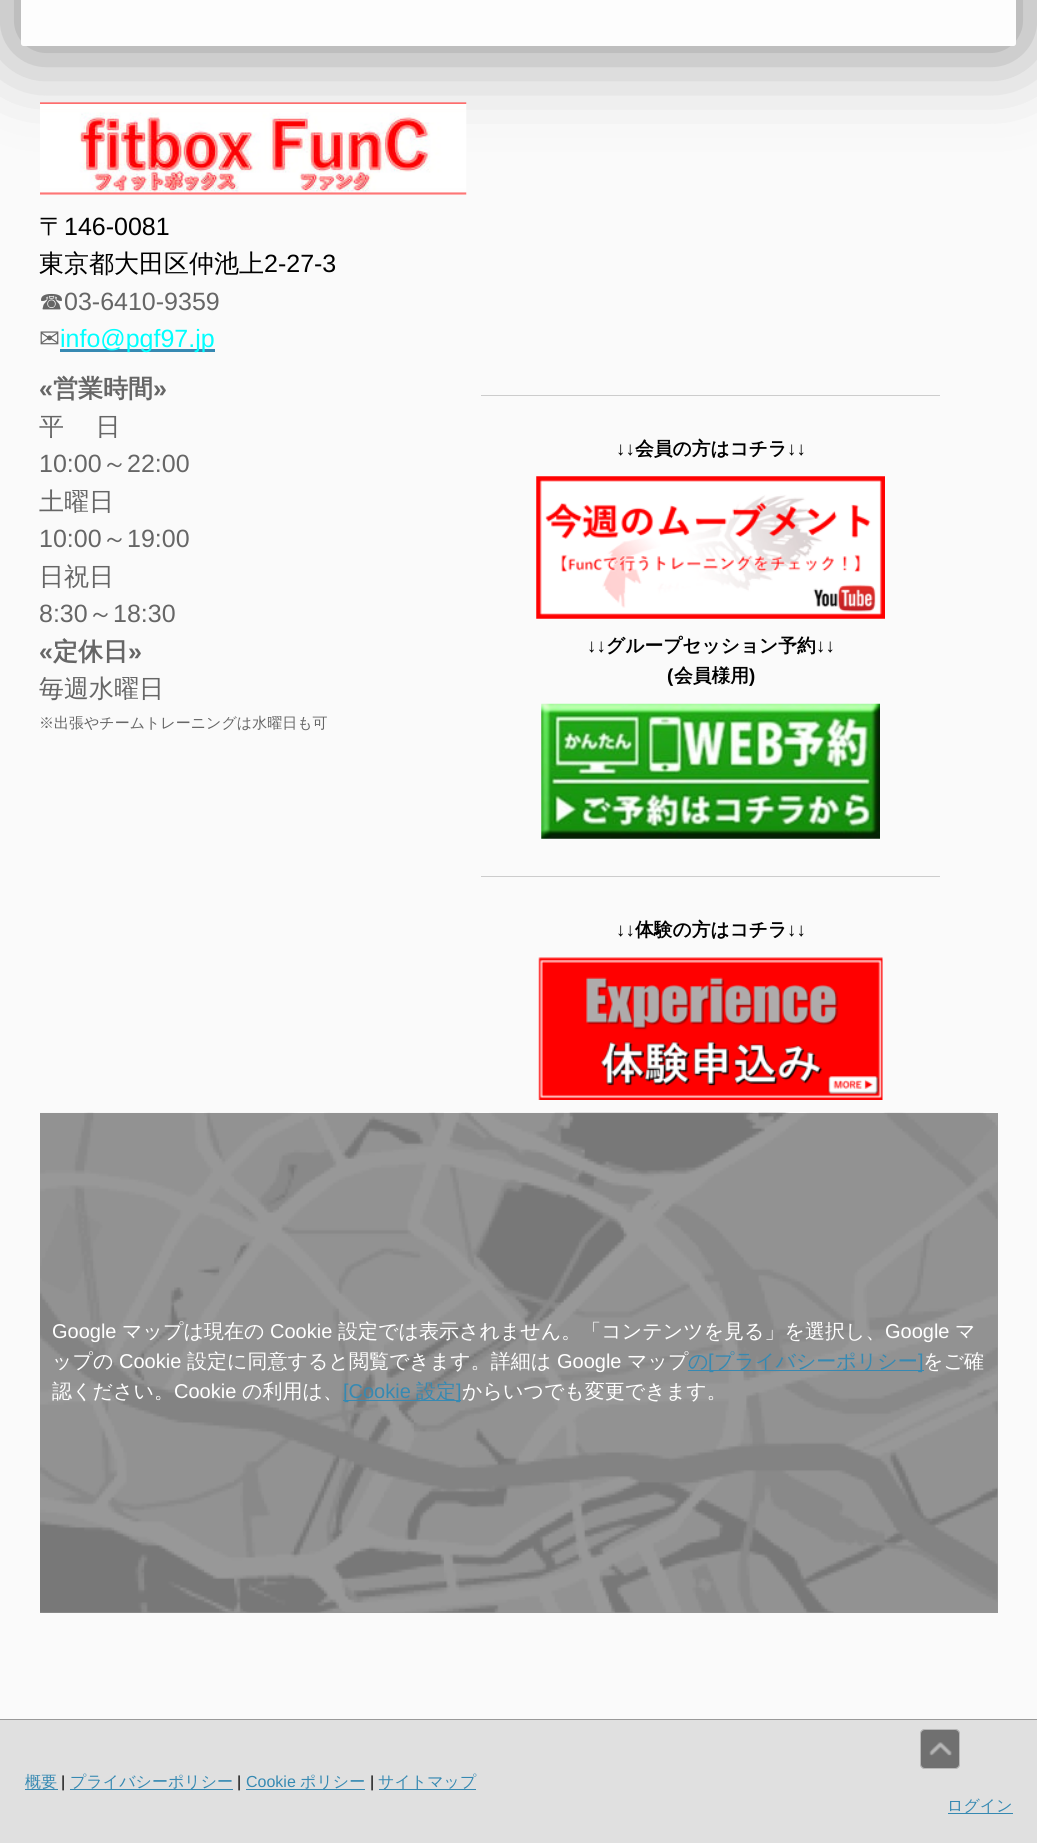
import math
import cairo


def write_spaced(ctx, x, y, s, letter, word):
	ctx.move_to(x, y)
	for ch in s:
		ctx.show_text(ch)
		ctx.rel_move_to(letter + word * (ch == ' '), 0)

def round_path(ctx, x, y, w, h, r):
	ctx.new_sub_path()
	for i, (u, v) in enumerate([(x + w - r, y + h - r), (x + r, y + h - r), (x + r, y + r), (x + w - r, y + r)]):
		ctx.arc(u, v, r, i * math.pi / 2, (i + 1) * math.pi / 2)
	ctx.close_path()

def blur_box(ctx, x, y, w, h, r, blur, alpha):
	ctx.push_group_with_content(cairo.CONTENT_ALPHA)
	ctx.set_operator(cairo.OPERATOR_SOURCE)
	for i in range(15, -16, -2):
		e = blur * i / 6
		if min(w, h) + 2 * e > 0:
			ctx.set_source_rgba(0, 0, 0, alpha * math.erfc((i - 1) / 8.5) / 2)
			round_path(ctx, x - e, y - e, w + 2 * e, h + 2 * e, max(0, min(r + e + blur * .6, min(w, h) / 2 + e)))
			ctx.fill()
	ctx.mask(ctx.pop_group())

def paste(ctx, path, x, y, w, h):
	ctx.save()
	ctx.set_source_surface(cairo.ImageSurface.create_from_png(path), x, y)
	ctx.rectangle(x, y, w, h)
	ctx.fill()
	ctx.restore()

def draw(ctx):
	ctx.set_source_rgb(0.98, 0.98, 0.98)
	ctx.paint()
	ctx.set_source_rgb(0.588, 0.588, 0.588)
	ctx.rectangle(40, 1113, 958, 500)
	ctx.fill()
	ctx.set_source_rgb(0.2, 0.2, 0.2)
	blur_box(ctx, 21, -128, 995, 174, 0, 42.5, 0.6)
	ctx.set_source_rgb(0.992, 0.992, 0.992)
	round_path(ctx, 21, -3, 995, 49, 2.5)
	ctx.fill()
	paste(ctx, 'media/1.png', 40, 102, 427, 93)
	ctx.select_font_face('WenQuanYi Zen Hei Medium')
	ctx.set_font_size(25)
	ctx.set_source_rgb(0, 0, 0)
	ctx.move_to(39, 235)
	ctx.show_text('〒')
	ctx.select_font_face('Liberation Sans')
	ctx.move_to(64, 235)
	ctx.show_text('146-0081')
	ctx.select_font_face('WenQuanYi Zen Hei Medium')
	ctx.move_to(39, 272)
	ctx.show_text('東京都大田区仲池上')
	ctx.select_font_face('Liberation Sans')
	ctx.move_to(264, 272)
	ctx.show_text('2-27-3')
	ctx.select_font_face('WenQuanYi Zen Hei Medium')
	ctx.set_source_rgb(0.4, 0.4, 0.4)
	ctx.move_to(39, 310)
	ctx.show_text('☎')
	ctx.select_font_face('Liberation Sans')
	ctx.move_to(64, 310)
	ctx.show_text('03-6410-9359')
	ctx.select_font_face('DejaVu Sans')
	ctx.move_to(39, 347)
	ctx.show_text('✉')
	ctx.set_source_rgb(0.212, 0.537, 0.698)
	ctx.rectangle(60, 349, 155, 3)
	ctx.fill()
	ctx.select_font_face('Liberation Sans')
	ctx.set_source_rgb(0, 1, 1)
	ctx.move_to(60, 347)
	ctx.show_text('info@pgf97.jp')
	ctx.select_font_face('Liberation Sans', cairo.FONT_SLANT_NORMAL, cairo.FONT_WEIGHT_BOLD)
	ctx.set_source_rgb(0.4, 0.4, 0.4)
	ctx.move_to(39, 397)
	ctx.show_text('«')
	ctx.select_font_face('WenQuanYi Zen Hei', cairo.FONT_SLANT_NORMAL, cairo.FONT_WEIGHT_BOLD)
	ctx.move_to(53, 397)
	ctx.show_text('営業時間')
	ctx.select_font_face('Liberation Sans', cairo.FONT_SLANT_NORMAL, cairo.FONT_WEIGHT_BOLD)
	ctx.move_to(153, 397)
	ctx.show_text('»')
	ctx.select_font_face('WenQuanYi Zen Hei Medium')
	write_spaced(ctx, 39, 435, '平 　日', 0, -1)
	ctx.select_font_face('Liberation Sans')
	ctx.move_to(39, 472)
	ctx.show_text('10:00')
	ctx.select_font_face('WenQuanYi Zen Hei Medium')
	ctx.move_to(102, 472)
	ctx.show_text('～')
	ctx.select_font_face('Liberation Sans')
	ctx.move_to(127, 472)
	ctx.show_text('22:00')
	ctx.select_font_face('WenQuanYi Zen Hei Medium')
	ctx.move_to(39, 510)
	ctx.show_text('土曜日')
	ctx.select_font_face('Liberation Sans')
	ctx.move_to(39, 547)
	ctx.show_text('10:00')
	ctx.select_font_face('WenQuanYi Zen Hei Medium')
	ctx.move_to(102, 547)
	ctx.show_text('～')
	ctx.select_font_face('Liberation Sans')
	ctx.move_to(127, 547)
	ctx.show_text('19:00')
	ctx.select_font_face('WenQuanYi Zen Hei Medium')
	ctx.move_to(39, 585)
	ctx.show_text('日祝日')
	ctx.select_font_face('Liberation Sans')
	ctx.move_to(39, 622)
	ctx.show_text('8:30')
	ctx.select_font_face('WenQuanYi Zen Hei Medium')
	ctx.move_to(88, 622)
	ctx.show_text('～')
	ctx.select_font_face('Liberation Sans')
	ctx.move_to(113, 622)
	ctx.show_text('18:30')
	ctx.select_font_face('Liberation Sans', cairo.FONT_SLANT_NORMAL, cairo.FONT_WEIGHT_BOLD)
	ctx.move_to(39, 660)
	ctx.show_text('«')
	ctx.select_font_face('WenQuanYi Zen Hei', cairo.FONT_SLANT_NORMAL, cairo.FONT_WEIGHT_BOLD)
	ctx.move_to(53, 660)
	ctx.show_text('定休日')
	ctx.select_font_face('Liberation Sans', cairo.FONT_SLANT_NORMAL, cairo.FONT_WEIGHT_BOLD)
	ctx.move_to(128, 660)
	ctx.show_text('»')
	ctx.select_font_face('WenQuanYi Zen Hei Medium')
	ctx.move_to(39, 697)
	ctx.show_text('毎週水曜日')
	ctx.set_font_size(15)
	ctx.move_to(39, 728)
	ctx.show_text('※出張やチームトレーニングは水曜日も可')
	ctx.set_source_rgb(0.8, 0.8, 0.8)
	ctx.rectangle(481, 395, 459, 1)
	ctx.fill()
	ctx.select_font_face('Liberation Sans', cairo.FONT_SLANT_NORMAL, cairo.FONT_WEIGHT_BOLD)
	ctx.set_font_size(18.75)
	ctx.set_source_rgb(0, 0, 0)
	ctx.move_to(616, 455)
	ctx.show_text('↓↓')
	ctx.select_font_face('WenQuanYi Zen Hei', cairo.FONT_SLANT_NORMAL, cairo.FONT_WEIGHT_BOLD)
	ctx.move_to(635, 455)
	ctx.show_text('会員の方はコチラ')
	ctx.select_font_face('Liberation Sans', cairo.FONT_SLANT_NORMAL, cairo.FONT_WEIGHT_BOLD)
	ctx.move_to(787, 455)
	ctx.show_text('↓↓')
	paste(ctx, 'media/2.png', 536, 476, 349, 143)
	ctx.move_to(587, 652)
	ctx.show_text('↓↓')
	ctx.select_font_face('WenQuanYi Zen Hei', cairo.FONT_SLANT_NORMAL, cairo.FONT_WEIGHT_BOLD)
	ctx.move_to(606, 652)
	ctx.show_text('グループセッション予約')
	ctx.select_font_face('Liberation Sans', cairo.FONT_SLANT_NORMAL, cairo.FONT_WEIGHT_BOLD)
	ctx.move_to(816, 652)
	ctx.show_text('↓↓')
	ctx.move_to(667, 682)
	ctx.show_text('(')
	ctx.select_font_face('WenQuanYi Zen Hei', cairo.FONT_SLANT_NORMAL, cairo.FONT_WEIGHT_BOLD)
	ctx.move_to(674, 682)
	ctx.show_text('会員様用')
	ctx.select_font_face('Liberation Sans', cairo.FONT_SLANT_NORMAL, cairo.FONT_WEIGHT_BOLD)
	ctx.move_to(749, 682)
	ctx.show_text(')')
	paste(ctx, 'media/3.png', 541, 703, 339, 136)
	ctx.set_source_rgb(0.8, 0.8, 0.8)
	ctx.rectangle(481, 876, 459, 1)
	ctx.fill()
	ctx.set_source_rgb(0, 0, 0)
	ctx.move_to(616, 936)
	ctx.show_text('↓↓')
	ctx.select_font_face('WenQuanYi Zen Hei', cairo.FONT_SLANT_NORMAL, cairo.FONT_WEIGHT_BOLD)
	ctx.move_to(635, 936)
	ctx.show_text('体験の方はコチラ')
	ctx.select_font_face('Liberation Sans', cairo.FONT_SLANT_NORMAL, cairo.FONT_WEIGHT_BOLD)
	ctx.move_to(787, 936)
	ctx.show_text('↓↓')
	paste(ctx, 'media/4.png', 538, 957, 345, 143)
	paste(ctx, 'media/5.png', 40, 1112, 958, 501)
	ctx.select_font_face('Liberation Sans')
	ctx.set_font_size(20)
	ctx.set_source_rgb(1, 1, 1)
	ctx.move_to(52, 1338)
	ctx.show_text('Google')
	ctx.select_font_face('WenQuanYi Zen Hei Medium')
	ctx.move_to(122, 1338)
	ctx.show_text('マップは現在の')
	ctx.select_font_face('Liberation Sans')
	ctx.move_to(270, 1338)
	ctx.show_text('Cookie')
	ctx.select_font_face('WenQuanYi Zen Hei Medium')
	ctx.move_to(338, 1338)
	ctx.show_text('設定では表示されません。「コンテンツを見る」を選択し、')
	ctx.select_font_face('Liberation Sans')
	ctx.move_to(885, 1338)
	ctx.show_text('Google')
	ctx.select_font_face('WenQuanYi Zen Hei Medium')
	ctx.move_to(955, 1338)
	ctx.show_text('マ')
	ctx.move_to(52, 1368)
	ctx.show_text('ップの')
	ctx.select_font_face('Liberation Sans')
	ctx.move_to(119, 1368)
	ctx.show_text('Cookie')
	ctx.select_font_face('WenQuanYi Zen Hei Medium')
	ctx.move_to(187, 1368)
	ctx.show_text('設定に同意すると閲覧できます。詳細は')
	ctx.select_font_face('Liberation Sans')
	ctx.move_to(557, 1368)
	ctx.show_text('Google')
	ctx.select_font_face('WenQuanYi Zen Hei Medium')
	ctx.move_to(627, 1368)
	ctx.show_text('マップ')
	ctx.set_source_rgb(0.212, 0.537, 0.698)
	ctx.move_to(688, 1368)
	ctx.show_text('の')
	ctx.rectangle(688, 1370, 236, 1)
	ctx.fill()
	ctx.select_font_face('Liberation Sans')
	ctx.move_to(708, 1368)
	ctx.show_text('[')
	ctx.select_font_face('WenQuanYi Zen Hei Medium')
	ctx.move_to(714, 1368)
	ctx.show_text('プライバシーポリシー')
	ctx.select_font_face('Liberation Sans')
	ctx.move_to(918, 1368)
	ctx.show_text(']')
	ctx.select_font_face('WenQuanYi Zen Hei Medium')
	ctx.set_source_rgb(1, 1, 1)
	ctx.move_to(923, 1368)
	ctx.show_text('をご確')
	ctx.move_to(52, 1398)
	ctx.show_text('認ください。')
	ctx.select_font_face('Liberation Sans')
	ctx.move_to(174, 1398)
	ctx.show_text('Cookie')
	ctx.select_font_face('WenQuanYi Zen Hei Medium')
	ctx.move_to(242, 1398)
	ctx.show_text('の利用は、')
	ctx.set_source_rgb(0.212, 0.537, 0.698)
	ctx.rectangle(343, 1400, 118, 1)
	ctx.fill()
	ctx.select_font_face('Liberation Sans')
	ctx.move_to(343, 1398)
	ctx.show_text('[Cookie')
	ctx.select_font_face('WenQuanYi Zen Hei Medium')
	ctx.move_to(416, 1398)
	ctx.show_text('設定')
	ctx.select_font_face('Liberation Sans')
	ctx.move_to(456, 1398)
	ctx.show_text(']')
	ctx.select_font_face('WenQuanYi Zen Hei Medium')
	ctx.set_source_rgb(1, 1, 1)
	ctx.move_to(462, 1398)
	ctx.show_text('からいつでも変更できます。')
	ctx.set_source_rgb(0.878, 0.878, 0.878)
	ctx.rectangle(0, 1720, 1037, 123)
	ctx.fill()
	ctx.set_source_rgb(0.6, 0.6, 0.6)
	ctx.rectangle(0, 1719, 1037, 1)
	ctx.fill()
	ctx.set_source_rgb(0.212, 0.537, 0.698)
	ctx.rectangle(25, 1789, 33, 1)
	ctx.fill()
	ctx.set_font_size(16)
	ctx.move_to(25, 1787)
	ctx.show_text('概要')
	ctx.select_font_face('Liberation Sans')
	ctx.set_source_rgb(0, 0, 0)
	ctx.move_to(61, 1787)
	ctx.show_text('|')
	ctx.set_source_rgb(0.212, 0.537, 0.698)
	ctx.rectangle(70, 1789, 163, 1)
	ctx.fill()
	ctx.select_font_face('WenQuanYi Zen Hei Medium')
	ctx.move_to(70, 1787)
	ctx.show_text('プライバシーポリシー')
	ctx.select_font_face('Liberation Sans')
	ctx.set_source_rgb(0, 0, 0)
	ctx.move_to(237, 1787)
	ctx.show_text('|')
	ctx.set_source_rgb(0.212, 0.537, 0.698)
	ctx.move_to(246, 1787)
	ctx.show_text('Cookie')
	ctx.rectangle(246, 1789, 119, 1)
	ctx.fill()
	ctx.select_font_face('WenQuanYi Zen Hei Medium')
	ctx.move_to(300, 1787)
	ctx.show_text('ポリシー')
	ctx.select_font_face('Liberation Sans')
	ctx.set_source_rgb(0, 0, 0)
	ctx.move_to(370, 1787)
	ctx.show_text('|')
	ctx.set_source_rgb(0.212, 0.537, 0.698)
	ctx.rectangle(379, 1789, 97, 1)
	ctx.fill()
	ctx.select_font_face('WenQuanYi Zen Hei Medium')
	ctx.move_to(378, 1787)
	ctx.show_text('サイトマップ')
	ctx.rectangle(948, 1813, 65, 1)
	ctx.fill()
	ctx.move_to(947, 1811)
	ctx.show_text('ログイン')
	ctx.set_source_rgb(0.439, 0.439, 0.439)
	round_path(ctx, 920, 1729, 40, 40, 5)
	ctx.fill()
	round_path(ctx, 920.5, 1729.5, 39, 39, 4.5)
	ctx.set_source_rgba(1, 1, 1, 0.5)
	ctx.set_line_width(1)
	ctx.stroke()
	paste(ctx, 'media/6.png', 929, 1742, 23, 14)


surface = cairo.ImageSurface(cairo.FORMAT_RGB24, 1037, 1843)
ctx = cairo.Context(surface)
options = cairo.FontOptions()
options.set_hint_metrics(cairo.HINT_METRICS_OFF)
options.set_hint_style(cairo.HINT_STYLE_NONE)
ctx.set_font_options(options)
ctx.set_miter_limit(4)
draw(ctx)
surface.write_to_png('image.png')
